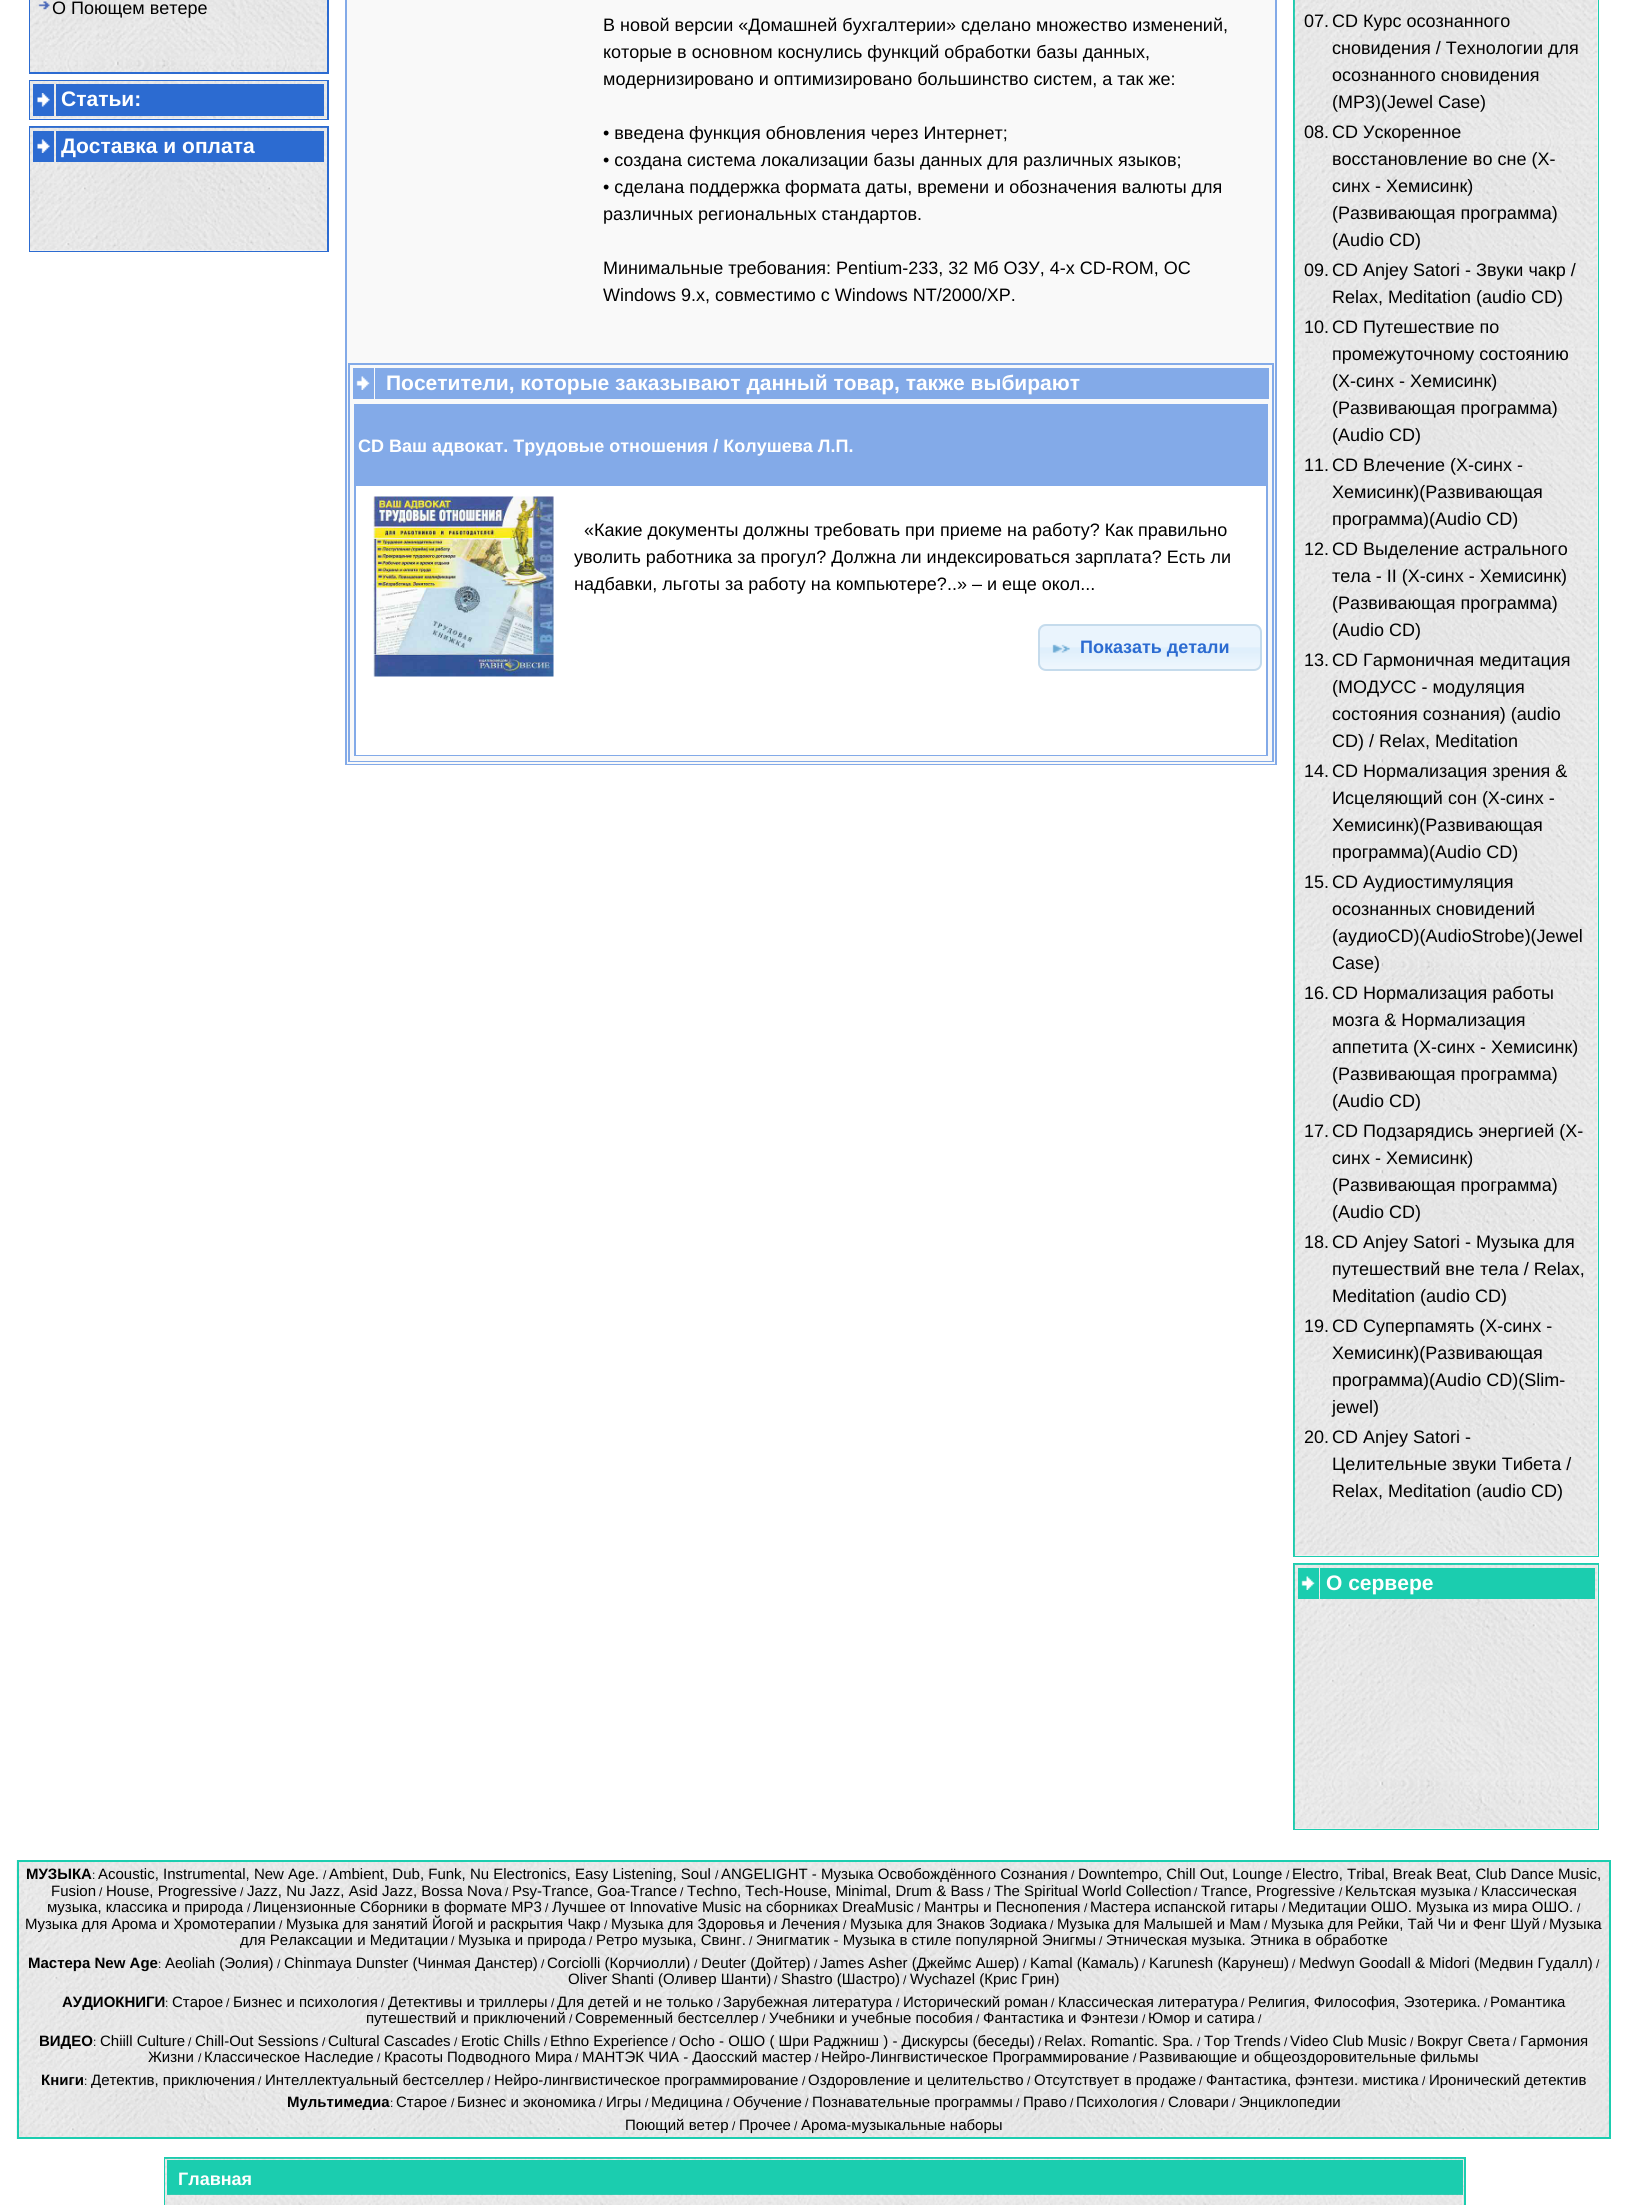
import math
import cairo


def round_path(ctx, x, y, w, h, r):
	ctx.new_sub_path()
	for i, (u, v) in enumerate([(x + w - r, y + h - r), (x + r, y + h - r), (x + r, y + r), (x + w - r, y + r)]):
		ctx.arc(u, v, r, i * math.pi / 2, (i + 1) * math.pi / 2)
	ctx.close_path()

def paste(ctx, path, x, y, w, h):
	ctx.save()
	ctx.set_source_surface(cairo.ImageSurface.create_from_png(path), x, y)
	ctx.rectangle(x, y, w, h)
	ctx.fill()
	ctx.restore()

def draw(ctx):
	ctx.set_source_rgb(1, 1, 1)
	ctx.paint()
	ctx.set_source_rgb(0.173, 0.42, 0.82)
	ctx.rectangle(29, 0, 300, 74)
	ctx.fill()
	ctx.set_source_rgb(0.973, 0.973, 0.973)
	ctx.rectangle(30, 0, 297, 72)
	ctx.fill()
	paste(ctx, 'media/1.png', 30, 0, 297, 72)
	paste(ctx, 'media/2.png', 38, 1, 12, 9)
	ctx.select_font_face('Liberation Sans')
	ctx.set_font_size(18)
	ctx.set_source_rgb(0, 0, 0)
	ctx.move_to(52, 14)
	ctx.show_text('О Поющем ветере')
	ctx.set_source_rgb(0.173, 0.42, 0.82)
	ctx.rectangle(29, 80, 300, 40)
	ctx.fill()
	ctx.set_source_rgb(0.973, 0.973, 0.973)
	ctx.rectangle(30, 81, 297, 38)
	ctx.fill()
	paste(ctx, 'media/3.png', 30, 81, 297, 38)
	ctx.set_source_rgb(0.173, 0.42, 0.82)
	ctx.rectangle(33, 84, 21, 32)
	ctx.fill()
	paste(ctx, 'media/4.png', 37, 93, 13, 14)
	ctx.rectangle(56, 84, 268, 32)
	ctx.fill()
	ctx.select_font_face('Liberation Sans', cairo.FONT_SLANT_NORMAL, cairo.FONT_WEIGHT_BOLD)
	ctx.set_font_size(21)
	ctx.set_source_rgb(1, 1, 1)
	ctx.move_to(61, 106)
	ctx.show_text('Статьи:')
	ctx.set_source_rgb(0.173, 0.42, 0.82)
	ctx.rectangle(29, 126, 300, 126)
	ctx.fill()
	ctx.set_source_rgb(0.973, 0.973, 0.973)
	ctx.rectangle(30, 128, 297, 123)
	ctx.fill()
	paste(ctx, 'media/5.png', 30, 127, 297, 124)
	ctx.set_source_rgb(0.173, 0.42, 0.82)
	ctx.rectangle(33, 131, 21, 31)
	ctx.fill()
	paste(ctx, 'media/6.png', 37, 139, 13, 14)
	ctx.rectangle(56, 131, 268, 31)
	ctx.fill()
	ctx.set_source_rgb(1, 1, 1)
	ctx.move_to(61, 153)
	ctx.show_text('Доставка и оплата')
	ctx.set_source_rgb(0.514, 0.667, 0.91)
	ctx.rectangle(345, 0, 932, 765)
	ctx.fill()
	ctx.set_source_rgb(0.973, 0.973, 0.973)
	ctx.rectangle(347, 0, 928, 764)
	ctx.fill()
	ctx.select_font_face('Liberation Sans')
	ctx.set_font_size(18)
	ctx.set_source_rgb(0, 0, 0)
	for x, y, s in [
		(603, 31, 'В новой версии «Домашней бухгалтерии» сделано множество изменений,'),
		(603, 58, 'которые в основном коснулись функций обработки базы данных,'),
		(603, 85, 'модернизировано и оптимизировано большинство систем, а так же:'),
		(603, 139, '• введена функция обновления через Интернет;'),
		(603, 166, '• создана система локализации базы данных для различных языков;'),
		(603, 193, '• сделана поддержка формата даты, времени и обозначения валюты для'),
		(603, 220, 'различных региональных стандартов.'),
		(603, 274, 'Минимальные требования: Pentium-233, 32 Мб ОЗУ, 4-x CD-ROM, ОС'),
		(603, 301, 'Windows 9.х, совместимо с Windows NT/2000/XP.'),
	]:
		ctx.move_to(x, y)
		ctx.show_text(s)
	ctx.set_source_rgb(0.514, 0.667, 0.91)
	ctx.rectangle(348, 363, 926, 399)
	ctx.fill()
	ctx.set_source_rgb(0.973, 0.973, 0.973)
	ctx.rectangle(350, 365, 922, 396)
	ctx.fill()
	ctx.set_source_rgb(0.514, 0.667, 0.91)
	ctx.rectangle(353, 368, 21, 31)
	ctx.fill()
	paste(ctx, 'media/7.png', 356, 376, 14, 14)
	ctx.rectangle(375, 368, 894, 31)
	ctx.fill()
	ctx.select_font_face('Liberation Sans', cairo.FONT_SLANT_NORMAL, cairo.FONT_WEIGHT_BOLD)
	ctx.set_font_size(21)
	ctx.set_source_rgb(1, 1, 1)
	ctx.move_to(386, 390)
	ctx.show_text('Посетители, которые заказывают данный товар, также выбирают')
	ctx.set_source_rgb(0.514, 0.667, 0.91)
	ctx.rectangle(354, 404, 914, 352)
	ctx.fill()
	ctx.set_source_rgb(1, 1, 1)
	ctx.rectangle(356, 486, 910, 269)
	ctx.fill()
	ctx.set_font_size(18)
	ctx.move_to(358, 452)
	ctx.show_text('CD Ваш адвокат. Трудовые отношения / Колушева Л.П.')
	paste(ctx, 'media/8.png', 373, 496, 181, 181)
	ctx.select_font_face('Liberation Sans')
	ctx.set_source_rgb(0, 0, 0)
	for x, y, s in [
		(584, 536, '«Какие документы должны требовать при приеме на работу? Как правильно'),
		(574, 563, 'уволить работника за прогул? Должна ли индексироваться зарплата? Есть ли'),
		(574, 590, 'надбавки, льготы за работу на компьютере?..» – и еще окол...'),
	]:
		ctx.move_to(x, y)
		ctx.show_text(s)
	paste(ctx, 'media/9.png', 1038, 624, 223, 47)
	round_path(ctx, 1039, 625, 222, 45, 7)
	ctx.set_source_rgb(0.773, 0.859, 0.925)
	ctx.stroke()
	paste(ctx, 'media/10.png', 1052, 644, 18, 9)
	ctx.select_font_face('Liberation Sans', cairo.FONT_SLANT_NORMAL, cairo.FONT_WEIGHT_BOLD)
	ctx.set_source_rgb(0.173, 0.42, 0.82)
	ctx.move_to(1080, 653)
	ctx.show_text('Показать детали')
	ctx.set_source_rgb(0.106, 0.804, 0.686)
	ctx.rectangle(1293, 0, 306, 1557)
	ctx.fill()
	ctx.set_source_rgb(0.973, 0.973, 0.973)
	ctx.rectangle(1295, 0, 303, 1556)
	ctx.fill()
	paste(ctx, 'media/11.png', 1294, 0, 304, 1556)
	ctx.select_font_face('Liberation Sans')
	ctx.set_source_rgb(0, 0, 0)
	for x, y, s in [
		(1304, 27, '07.'),
		(1332, 27, 'CD Курс осознанного'),
		(1332, 54, 'сновидения / Технологии для'),
		(1332, 81, 'осознанного сновидения'),
		(1332, 108, '(MP3)(Jewel Case)'),
		(1304, 138, '08.'),
		(1332, 138, 'СD Ускоренное'),
		(1332, 165, 'восстановление во сне (Х-'),
		(1332, 192, 'синх - Хемисинк)'),
		(1332, 219, '(Развивающая программа)'),
		(1332, 246, '(Audio CD)'),
		(1304, 276, '09.'),
		(1332, 276, 'СD Anjey Satori - Звуки чакр /'),
		(1332, 303, 'Relax, Meditation (audio CD)'),
		(1304, 333, '10.'),
		(1332, 333, 'СD Путешествие по'),
		(1332, 360, 'промежуточному состоянию'),
		(1332, 387, '(Х-синх - Хемисинк)'),
		(1332, 414, '(Развивающая программа)'),
		(1332, 441, '(Audio CD)'),
		(1304, 471, '11.'),
		(1332, 471, 'СD Влечение (Х-синх -'),
		(1332, 498, 'Хемисинк)(Развивающая'),
		(1332, 525, 'программа)(Audio CD)'),
		(1304, 555, '12.'),
		(1332, 555, 'СD Выделение астрального'),
		(1332, 582, 'тела - II (Х-синх - Хемисинк)'),
		(1332, 609, '(Развивающая программа)'),
		(1332, 636, '(Audio CD)'),
		(1304, 666, '13.'),
		(1332, 666, 'CD Гармоничная медитация'),
		(1332, 693, '(МОДУСС - модуляция'),
		(1332, 720, 'состояния сознания) (audio'),
		(1332, 747, 'CD) / Relax, Meditation'),
		(1304, 777, '14.'),
		(1332, 777, 'СD Нормализация зрения &'),
		(1332, 804, 'Исцеляющий сон (Х-синх -'),
		(1332, 831, 'Хемисинк)(Развивающая'),
		(1332, 858, 'программа)(Audio CD)'),
		(1304, 888, '15.'),
		(1332, 888, 'СD Аудиостимуляция'),
		(1332, 915, 'осознанных сновидений'),
		(1332, 942, '(аудиоCD)(AudioStrobe)(Jewel'),
		(1332, 969, 'Case)'),
		(1304, 999, '16.'),
		(1332, 999, 'СD Нормализация работы'),
		(1332, 1026, 'мозга & Нормализация'),
		(1332, 1053, 'аппетита (Х-синх - Хемисинк)'),
		(1332, 1080, '(Развивающая программа)'),
		(1332, 1107, '(Audio CD)'),
		(1304, 1137, '17.'),
		(1332, 1137, 'СD Подзарядись энергией (Х-'),
		(1332, 1164, 'синх - Хемисинк)'),
		(1332, 1191, '(Развивающая программа)'),
		(1332, 1218, '(Audio CD)'),
		(1304, 1248, '18.'),
		(1332, 1248, 'СD Anjey Satori - Музыка для'),
		(1332, 1275, 'путешествий вне тела / Relax,'),
		(1332, 1302, 'Meditation (audio CD)'),
		(1304, 1332, '19.'),
		(1332, 1332, 'СD Суперпамять (Х-синх -'),
		(1332, 1359, 'Хемисинк)(Развивающая'),
		(1332, 1386, 'программа)(Audio CD)(Slim-'),
		(1332, 1413, 'jewel)'),
		(1304, 1443, '20.'),
		(1332, 1443, 'СD Anjey Satori -'),
		(1332, 1470, 'Целительные звуки Тибета /'),
		(1332, 1497, 'Relax, Meditation (audio CD)'),
	]:
		ctx.move_to(x, y)
		ctx.show_text(s)
	ctx.set_source_rgb(0.106, 0.804, 0.686)
	ctx.rectangle(1293, 1563, 306, 267)
	ctx.fill()
	ctx.set_source_rgb(0.973, 0.973, 0.973)
	ctx.rectangle(1295, 1565, 303, 264)
	ctx.fill()
	paste(ctx, 'media/12.png', 1294, 1564, 304, 265)
	ctx.set_source_rgb(0.106, 0.804, 0.686)
	ctx.rectangle(1298, 1568, 21, 31)
	ctx.fill()
	paste(ctx, 'media/13.png', 1301, 1576, 14, 14)
	ctx.rectangle(1320, 1568, 275, 31)
	ctx.fill()
	ctx.select_font_face('Liberation Sans', cairo.FONT_SLANT_NORMAL, cairo.FONT_WEIGHT_BOLD)
	ctx.set_font_size(21)
	ctx.set_source_rgb(1, 1, 1)
	ctx.move_to(1326, 1590)
	ctx.show_text('О сервере')
	ctx.set_source_rgb(0.973, 0.973, 0.973)
	ctx.rectangle(19, 1862, 1590, 275)
	ctx.fill()
	paste(ctx, 'media/14.png', 16, 1860, 1593, 279)
	ctx.rectangle(18, 1861, 1592, 277)
	ctx.set_source_rgb(0.106, 0.804, 0.686)
	ctx.stroke()
	ctx.set_font_size(15)
	ctx.set_source_rgb(0, 0, 0)
	ctx.move_to(26, 1879)
	ctx.show_text('МУЗЫКА')
	ctx.select_font_face('Liberation Sans')
	ctx.set_font_size(12)
	ctx.move_to(92, 1879)
	ctx.show_text(':')
	ctx.set_font_size(15)
	ctx.move_to(98, 1879)
	ctx.show_text('Acoustic, Instrumental, New Age.')
	ctx.set_font_size(12)
	ctx.move_to(323, 1879)
	ctx.show_text('/')
	ctx.set_font_size(15)
	ctx.move_to(329, 1879)
	ctx.show_text('Ambient, Dub, Funk, Nu Electronics, Easy Listening, Soul')
	ctx.set_font_size(12)
	ctx.move_to(715, 1879)
	ctx.show_text('/')
	ctx.set_font_size(15)
	ctx.move_to(721, 1879)
	ctx.show_text('ANGELIGHT - Музыка Освобождённого Сознания')
	ctx.set_font_size(12)
	ctx.move_to(1071, 1879)
	ctx.show_text('/')
	ctx.set_font_size(15)
	ctx.move_to(1078, 1879)
	ctx.show_text('Downtempo, Chill Out, Lounge')
	ctx.set_font_size(12)
	ctx.move_to(1286, 1879)
	ctx.show_text('/')
	ctx.set_font_size(15)
	ctx.move_to(1292, 1879)
	ctx.show_text('Electro, Tribal, Break Beat, Club Dance Music,')
	ctx.move_to(51, 1896)
	ctx.show_text('Fusion')
	ctx.set_font_size(12)
	ctx.move_to(99, 1896)
	ctx.show_text('/')
	ctx.set_font_size(15)
	ctx.move_to(106, 1896)
	ctx.show_text('House, Progressive')
	ctx.set_font_size(12)
	ctx.move_to(240, 1896)
	ctx.show_text('/')
	ctx.set_font_size(15)
	ctx.move_to(247, 1896)
	ctx.show_text('Jazz, Nu Jazz, Asid Jazz, Bossa Nova')
	ctx.set_font_size(12)
	ctx.move_to(505, 1896)
	ctx.show_text('/')
	ctx.set_font_size(15)
	ctx.move_to(512, 1896)
	ctx.show_text('Psy-Trance, Goa-Trance')
	ctx.set_font_size(12)
	ctx.move_to(680, 1896)
	ctx.show_text('/')
	ctx.set_font_size(15)
	ctx.move_to(687, 1896)
	ctx.show_text('Techno, Tech-House, Minimal, Drum & Bass')
	ctx.set_font_size(12)
	ctx.move_to(987, 1896)
	ctx.show_text('/')
	ctx.set_font_size(15)
	ctx.move_to(994, 1896)
	ctx.show_text('The Spiritual World Collection')
	ctx.set_font_size(12)
	ctx.move_to(1194, 1896)
	ctx.show_text('/')
	ctx.set_font_size(15)
	ctx.move_to(1201, 1896)
	ctx.show_text('Trance, Progressive')
	ctx.set_font_size(12)
	ctx.move_to(1339, 1896)
	ctx.show_text('/')
	ctx.set_font_size(15)
	ctx.move_to(1345, 1896)
	ctx.show_text('Кельтская музыка')
	ctx.set_font_size(12)
	ctx.move_to(1474, 1896)
	ctx.show_text('/')
	ctx.set_font_size(15)
	ctx.move_to(1481, 1896)
	ctx.show_text('Классическая')
	ctx.move_to(47, 1912)
	ctx.show_text('музыка, классика и природа')
	ctx.set_font_size(12)
	ctx.move_to(247, 1912)
	ctx.show_text('/')
	ctx.set_font_size(15)
	ctx.move_to(253, 1912)
	ctx.show_text('Лицензионные Сборники в формате MP3')
	ctx.set_font_size(12)
	ctx.move_to(545, 1912)
	ctx.show_text('/')
	ctx.set_font_size(15)
	ctx.move_to(552, 1912)
	ctx.show_text('Лучшее от Innovative Music на сборниках DreaMusic')
	ctx.set_font_size(12)
	ctx.move_to(917, 1912)
	ctx.show_text('/')
	ctx.set_font_size(15)
	ctx.move_to(924, 1912)
	ctx.show_text('Мантры и Песнопения')
	ctx.set_font_size(12)
	ctx.move_to(1084, 1912)
	ctx.show_text('/')
	ctx.set_font_size(15)
	ctx.move_to(1090, 1912)
	ctx.show_text('Мастера испанской гитары')
	ctx.set_font_size(12)
	ctx.move_to(1282, 1912)
	ctx.show_text('/')
	ctx.set_font_size(15)
	ctx.move_to(1288, 1912)
	ctx.show_text('Медитации ОШО. Музыка из мира ОШО.')
	ctx.set_font_size(12)
	ctx.move_to(1577, 1912)
	ctx.show_text('/')
	ctx.set_font_size(15)
	ctx.move_to(25, 1929)
	ctx.show_text('Музыка для Арома и Хромотерапии')
	ctx.set_font_size(12)
	ctx.move_to(279, 1929)
	ctx.show_text('/')
	ctx.set_font_size(15)
	ctx.move_to(286, 1929)
	ctx.show_text('Музыка для занятий Йогой и раскрытия Чакр')
	ctx.set_font_size(12)
	ctx.move_to(604, 1929)
	ctx.show_text('/')
	ctx.set_font_size(15)
	ctx.move_to(611, 1929)
	ctx.show_text('Музыка для Здоровья и Лечения')
	ctx.set_font_size(12)
	ctx.move_to(843, 1929)
	ctx.show_text('/')
	ctx.set_font_size(15)
	ctx.move_to(850, 1929)
	ctx.show_text('Музыка для Знаков Зодиака')
	ctx.set_font_size(12)
	ctx.move_to(1050, 1929)
	ctx.show_text('/')
	ctx.set_font_size(15)
	ctx.move_to(1057, 1929)
	ctx.show_text('Музыка для Малышей и Мам')
	ctx.set_font_size(12)
	ctx.move_to(1264, 1929)
	ctx.show_text('/')
	ctx.set_font_size(15)
	ctx.move_to(1271, 1929)
	ctx.show_text('Музыка для Рейки, Тай Чи и Фенг Шуй')
	ctx.set_font_size(12)
	ctx.move_to(1543, 1929)
	ctx.show_text('/')
	ctx.set_font_size(15)
	ctx.move_to(1549, 1929)
	ctx.show_text('Музыка')
	ctx.move_to(240, 1945)
	ctx.show_text('для Релаксации и Медитации')
	ctx.set_font_size(12)
	ctx.move_to(451, 1945)
	ctx.show_text('/')
	ctx.set_font_size(15)
	ctx.move_to(458, 1945)
	ctx.show_text('Музыка и природа')
	ctx.set_font_size(12)
	ctx.move_to(589, 1945)
	ctx.show_text('/')
	ctx.set_font_size(15)
	ctx.move_to(596, 1945)
	ctx.show_text('Ретро музыка, Свинг.')
	ctx.set_font_size(12)
	ctx.move_to(749, 1945)
	ctx.show_text('/')
	ctx.set_font_size(15)
	ctx.move_to(756, 1945)
	ctx.show_text('Энигматик - Музыка в стиле популярной Энигмы')
	ctx.set_font_size(12)
	ctx.move_to(1099, 1945)
	ctx.show_text('/')
	ctx.set_font_size(15)
	ctx.move_to(1106, 1945)
	ctx.show_text('Этническая музыка. Этника в обработке')
	ctx.select_font_face('Liberation Sans', cairo.FONT_SLANT_NORMAL, cairo.FONT_WEIGHT_BOLD)
	ctx.move_to(28, 1968)
	ctx.show_text('Мастера New Age')
	ctx.select_font_face('Liberation Sans')
	ctx.set_font_size(12)
	ctx.move_to(158, 1968)
	ctx.show_text(':')
	ctx.set_font_size(15)
	ctx.move_to(165, 1968)
	ctx.show_text('Aeoliah (Эолия)')
	ctx.set_font_size(12)
	ctx.move_to(277, 1968)
	ctx.show_text('/')
	ctx.set_font_size(15)
	ctx.move_to(284, 1968)
	ctx.show_text('Chinmaya Dunster (Чинмая Данстер)')
	ctx.set_font_size(12)
	ctx.move_to(541, 1968)
	ctx.show_text('/')
	ctx.set_font_size(15)
	ctx.move_to(547, 1968)
	ctx.show_text('Corciolli (Корчиолли)')
	ctx.set_font_size(12)
	ctx.move_to(694, 1968)
	ctx.show_text('/')
	ctx.set_font_size(15)
	ctx.move_to(701, 1968)
	ctx.show_text('Deuter (Дойтер)')
	ctx.set_font_size(12)
	ctx.move_to(814, 1968)
	ctx.show_text('/')
	ctx.set_font_size(15)
	ctx.move_to(820, 1968)
	ctx.show_text('James Asher (Джеймс Ашер)')
	ctx.set_font_size(12)
	ctx.move_to(1023, 1968)
	ctx.show_text('/')
	ctx.set_font_size(15)
	ctx.move_to(1030, 1968)
	ctx.show_text('Kamal (Камаль)')
	ctx.set_font_size(12)
	ctx.move_to(1142, 1968)
	ctx.show_text('/')
	ctx.set_font_size(15)
	ctx.move_to(1149, 1968)
	ctx.show_text('Karunesh (Карунеш)')
	ctx.set_font_size(12)
	ctx.move_to(1292, 1968)
	ctx.show_text('/')
	ctx.set_font_size(15)
	ctx.move_to(1299, 1968)
	ctx.show_text('Medwyn Goodall & Midori (Медвин Гудалл)')
	ctx.set_font_size(12)
	ctx.move_to(1596, 1968)
	ctx.show_text('/')
	ctx.set_font_size(15)
	ctx.move_to(568, 1984)
	ctx.show_text('Oliver Shanti (Оливер Шанти)')
	ctx.set_font_size(12)
	ctx.move_to(774, 1984)
	ctx.show_text('/')
	ctx.set_font_size(15)
	ctx.move_to(781, 1984)
	ctx.show_text('Shastro (Шастро)')
	ctx.set_font_size(12)
	ctx.move_to(903, 1984)
	ctx.show_text('/')
	ctx.set_font_size(15)
	ctx.move_to(910, 1984)
	ctx.show_text('Wychazel (Крис Грин)')
	ctx.select_font_face('Liberation Sans', cairo.FONT_SLANT_NORMAL, cairo.FONT_WEIGHT_BOLD)
	ctx.move_to(62, 2007)
	ctx.show_text('АУДИОКНИГИ')
	ctx.select_font_face('Liberation Sans')
	ctx.set_font_size(12)
	ctx.move_to(165, 2007)
	ctx.show_text(':')
	ctx.set_font_size(15)
	ctx.move_to(172, 2007)
	ctx.show_text('Старое')
	ctx.set_font_size(12)
	ctx.move_to(226, 2007)
	ctx.show_text('/')
	ctx.set_font_size(15)
	ctx.move_to(233, 2007)
	ctx.show_text('Бизнес и психология')
	ctx.set_font_size(12)
	ctx.move_to(381, 2007)
	ctx.show_text('/')
	ctx.set_font_size(15)
	ctx.move_to(388, 2007)
	ctx.show_text('Детективы и триллеры')
	ctx.set_font_size(12)
	ctx.move_to(551, 2007)
	ctx.show_text('/')
	ctx.set_font_size(15)
	ctx.move_to(557, 2007)
	ctx.show_text('Для детей и не только')
	ctx.set_font_size(12)
	ctx.move_to(717, 2007)
	ctx.show_text('/')
	ctx.set_font_size(15)
	ctx.move_to(723, 2007)
	ctx.show_text('Зарубежная литература')
	ctx.set_font_size(12)
	ctx.move_to(896, 2007)
	ctx.show_text('/')
	ctx.set_font_size(15)
	ctx.move_to(903, 2007)
	ctx.show_text('Исторический роман')
	ctx.set_font_size(12)
	ctx.move_to(1051, 2007)
	ctx.show_text('/')
	ctx.set_font_size(15)
	ctx.move_to(1058, 2007)
	ctx.show_text('Классическая литература')
	ctx.set_font_size(12)
	ctx.move_to(1241, 2007)
	ctx.show_text('/')
	ctx.set_font_size(15)
	ctx.move_to(1248, 2007)
	ctx.show_text('Религия, Философия, Эзотерика.')
	ctx.set_font_size(12)
	ctx.move_to(1484, 2007)
	ctx.show_text('/')
	ctx.set_font_size(15)
	ctx.move_to(1490, 2007)
	ctx.show_text('Романтика')
	ctx.move_to(366, 2023)
	ctx.show_text('путешествий и приключений')
	ctx.set_font_size(12)
	ctx.move_to(569, 2023)
	ctx.show_text('/')
	ctx.set_font_size(15)
	ctx.move_to(575, 2023)
	ctx.show_text('Современный бестселлер')
	ctx.set_font_size(12)
	ctx.move_to(762, 2023)
	ctx.show_text('/')
	ctx.set_font_size(15)
	ctx.move_to(769, 2023)
	ctx.show_text('Учебники и учебные пособия')
	ctx.set_font_size(12)
	ctx.move_to(976, 2023)
	ctx.show_text('/')
	ctx.set_font_size(15)
	ctx.move_to(983, 2023)
	ctx.show_text('Фантастика и Фэнтези')
	ctx.set_font_size(12)
	ctx.move_to(1142, 2023)
	ctx.show_text('/')
	ctx.set_font_size(15)
	ctx.move_to(1148, 2023)
	ctx.show_text('Юмор и сатира')
	ctx.set_font_size(12)
	ctx.move_to(1258, 2023)
	ctx.show_text('/')
	ctx.select_font_face('Liberation Sans', cairo.FONT_SLANT_NORMAL, cairo.FONT_WEIGHT_BOLD)
	ctx.set_font_size(15)
	ctx.move_to(39, 2046)
	ctx.show_text('ВИДЕО')
	ctx.select_font_face('Liberation Sans')
	ctx.set_font_size(12)
	ctx.move_to(93, 2046)
	ctx.show_text(':')
	ctx.set_font_size(15)
	ctx.move_to(100, 2046)
	ctx.show_text('Chiill Culture')
	ctx.set_font_size(12)
	ctx.move_to(188, 2046)
	ctx.show_text('/')
	ctx.set_font_size(15)
	ctx.move_to(195, 2046)
	ctx.show_text('Chill-Out Sessions')
	ctx.set_font_size(12)
	ctx.move_to(322, 2046)
	ctx.show_text('/')
	ctx.set_font_size(15)
	ctx.move_to(328, 2046)
	ctx.show_text('Cultural Cascades')
	ctx.set_font_size(12)
	ctx.move_to(454, 2046)
	ctx.show_text('/')
	ctx.set_font_size(15)
	ctx.move_to(461, 2046)
	ctx.show_text('Erotic Chills')
	ctx.set_font_size(12)
	ctx.move_to(544, 2046)
	ctx.show_text('/')
	ctx.set_font_size(15)
	ctx.move_to(550, 2046)
	ctx.show_text('Ethno Experience')
	ctx.set_font_size(12)
	ctx.move_to(672, 2046)
	ctx.show_text('/')
	ctx.set_font_size(15)
	ctx.move_to(679, 2046)
	ctx.show_text('Ocho - ОШО ( Шри Раджниш ) - Дискурсы (беседы)')
	ctx.set_font_size(12)
	ctx.move_to(1038, 2046)
	ctx.show_text('/')
	ctx.set_font_size(15)
	ctx.move_to(1044, 2046)
	ctx.show_text('Relax. Romantic. Spa.')
	ctx.set_font_size(12)
	ctx.move_to(1197, 2046)
	ctx.show_text('/')
	ctx.set_font_size(15)
	ctx.move_to(1204, 2046)
	ctx.show_text('Top Trends')
	ctx.set_font_size(12)
	ctx.move_to(1284, 2046)
	ctx.show_text('/')
	ctx.set_font_size(15)
	ctx.move_to(1290, 2046)
	ctx.show_text('Video Club Music')
	ctx.set_font_size(12)
	ctx.move_to(1410, 2046)
	ctx.show_text('/')
	ctx.set_font_size(15)
	ctx.move_to(1417, 2046)
	ctx.show_text('Вокруг Света')
	ctx.set_font_size(12)
	ctx.move_to(1513, 2046)
	ctx.show_text('/')
	ctx.set_font_size(15)
	ctx.move_to(1520, 2046)
	ctx.show_text('Гармония')
	ctx.move_to(148, 2062)
	ctx.show_text('Жизни')
	ctx.set_font_size(12)
	ctx.move_to(198, 2062)
	ctx.show_text('/')
	ctx.set_font_size(15)
	ctx.move_to(204, 2062)
	ctx.show_text('Классическое Наследие')
	ctx.set_font_size(12)
	ctx.move_to(377, 2062)
	ctx.show_text('/')
	ctx.set_font_size(15)
	ctx.move_to(384, 2062)
	ctx.show_text('Красоты Подводного Мира')
	ctx.set_font_size(12)
	ctx.move_to(575, 2062)
	ctx.show_text('/')
	ctx.set_font_size(15)
	ctx.move_to(582, 2062)
	ctx.show_text('МАНТЭК ЧИА - Даосский мастер')
	ctx.set_font_size(12)
	ctx.move_to(815, 2062)
	ctx.show_text('/')
	ctx.set_font_size(15)
	ctx.move_to(821, 2062)
	ctx.show_text('Нейро-Лингвистическое Программирование')
	ctx.set_font_size(12)
	ctx.move_to(1133, 2062)
	ctx.show_text('/')
	ctx.set_font_size(15)
	ctx.move_to(1139, 2062)
	ctx.show_text('Развивающие и общеоздоровительные фильмы')
	ctx.select_font_face('Liberation Sans', cairo.FONT_SLANT_NORMAL, cairo.FONT_WEIGHT_BOLD)
	ctx.move_to(41, 2085)
	ctx.show_text('Книги')
	ctx.select_font_face('Liberation Sans')
	ctx.set_font_size(12)
	ctx.move_to(84, 2085)
	ctx.show_text(':')
	ctx.set_font_size(15)
	ctx.move_to(91, 2085)
	ctx.show_text('Детектив, приключения')
	ctx.set_font_size(12)
	ctx.move_to(258, 2085)
	ctx.show_text('/')
	ctx.set_font_size(15)
	ctx.move_to(265, 2085)
	ctx.show_text('Интеллектуальный бестселлер')
	ctx.set_font_size(12)
	ctx.move_to(487, 2085)
	ctx.show_text('/')
	ctx.set_font_size(15)
	ctx.move_to(494, 2085)
	ctx.show_text('Нейро-лингвистическое программирование')
	ctx.set_font_size(12)
	ctx.move_to(802, 2085)
	ctx.show_text('/')
	ctx.set_font_size(15)
	ctx.move_to(808, 2085)
	ctx.show_text('Оздоровление и целительство')
	ctx.set_font_size(12)
	ctx.move_to(1027, 2085)
	ctx.show_text('/')
	ctx.set_font_size(15)
	ctx.move_to(1034, 2085)
	ctx.show_text('Отсутствует в продаже')
	ctx.set_font_size(12)
	ctx.move_to(1199, 2085)
	ctx.show_text('/')
	ctx.set_font_size(15)
	ctx.move_to(1206, 2085)
	ctx.show_text('Фантастика, фэнтези. мистика')
	ctx.set_font_size(12)
	ctx.move_to(1422, 2085)
	ctx.show_text('/')
	ctx.set_font_size(15)
	ctx.move_to(1429, 2085)
	ctx.show_text('Иронический детектив')
	ctx.select_font_face('Liberation Sans', cairo.FONT_SLANT_NORMAL, cairo.FONT_WEIGHT_BOLD)
	ctx.move_to(287, 2107)
	ctx.show_text('Мультимедиа')
	ctx.select_font_face('Liberation Sans')
	ctx.set_font_size(12)
	ctx.move_to(390, 2107)
	ctx.show_text(':')
	ctx.set_font_size(15)
	ctx.move_to(396, 2107)
	ctx.show_text('Старое')
	ctx.set_font_size(12)
	ctx.move_to(451, 2107)
	ctx.show_text('/')
	ctx.set_font_size(15)
	ctx.move_to(457, 2107)
	ctx.show_text('Бизнес и экономика')
	ctx.set_font_size(12)
	ctx.move_to(599, 2107)
	ctx.show_text('/')
	ctx.set_font_size(15)
	ctx.move_to(606, 2107)
	ctx.show_text('Игры')
	ctx.set_font_size(12)
	ctx.move_to(645, 2107)
	ctx.show_text('/')
	ctx.set_font_size(15)
	ctx.move_to(651, 2107)
	ctx.show_text('Медицина')
	ctx.set_font_size(12)
	ctx.move_to(726, 2107)
	ctx.show_text('/')
	ctx.set_font_size(15)
	ctx.move_to(733, 2107)
	ctx.show_text('Обучение')
	ctx.set_font_size(12)
	ctx.move_to(805, 2107)
	ctx.show_text('/')
	ctx.set_font_size(15)
	ctx.move_to(812, 2107)
	ctx.show_text('Познавательные программы')
	ctx.set_font_size(12)
	ctx.move_to(1016, 2107)
	ctx.show_text('/')
	ctx.set_font_size(15)
	ctx.move_to(1023, 2107)
	ctx.show_text('Право')
	ctx.set_font_size(12)
	ctx.move_to(1070, 2107)
	ctx.show_text('/')
	ctx.set_font_size(15)
	ctx.move_to(1076, 2107)
	ctx.show_text('Психология')
	ctx.set_font_size(12)
	ctx.move_to(1161, 2107)
	ctx.show_text('/')
	ctx.set_font_size(15)
	ctx.move_to(1168, 2107)
	ctx.show_text('Словари')
	ctx.set_font_size(12)
	ctx.move_to(1232, 2107)
	ctx.show_text('/')
	ctx.set_font_size(15)
	ctx.move_to(1239, 2107)
	ctx.show_text('Энциклопедии')
	ctx.move_to(625, 2130)
	ctx.show_text('Поющий ветер')
	ctx.set_font_size(12)
	ctx.move_to(732, 2130)
	ctx.show_text('/')
	ctx.set_font_size(15)
	ctx.move_to(739, 2130)
	ctx.show_text('Прочее')
	ctx.set_font_size(12)
	ctx.move_to(794, 2130)
	ctx.show_text('/')
	ctx.set_font_size(15)
	ctx.move_to(801, 2130)
	ctx.show_text('Арома-музыкальные наборы')
	ctx.set_source_rgb(0.106, 0.804, 0.686)
	ctx.rectangle(164, 2157, 1302, 48)
	ctx.fill()
	ctx.set_source_rgb(0.973, 0.973, 0.973)
	ctx.rectangle(165, 2159, 1299, 46)
	ctx.fill()
	paste(ctx, 'media/15.png', 165, 2158, 1299, 47)
	ctx.set_source_rgb(0.106, 0.804, 0.686)
	ctx.rectangle(167, 2160, 1296, 35)
	ctx.fill()
	ctx.select_font_face('Liberation Sans', cairo.FONT_SLANT_NORMAL, cairo.FONT_WEIGHT_BOLD)
	ctx.set_font_size(18)
	ctx.set_source_rgb(1, 1, 1)
	ctx.move_to(178, 2185)
	ctx.show_text('Главная')
	ctx.set_source_rgb(0.973, 0.973, 0.973)
	ctx.rectangle(167, 2195, 1296, 10)
	ctx.fill()
	paste(ctx, 'media/16.png', 166, 2194, 1297, 11)


surface = cairo.ImageSurface(cairo.FORMAT_RGB24, 1627, 2205)
ctx = cairo.Context(surface)
options = cairo.FontOptions()
options.set_hint_metrics(cairo.HINT_METRICS_OFF)
options.set_hint_style(cairo.HINT_STYLE_NONE)
ctx.set_font_options(options)
ctx.set_miter_limit(4)
draw(ctx)
surface.write_to_png('image.png')
